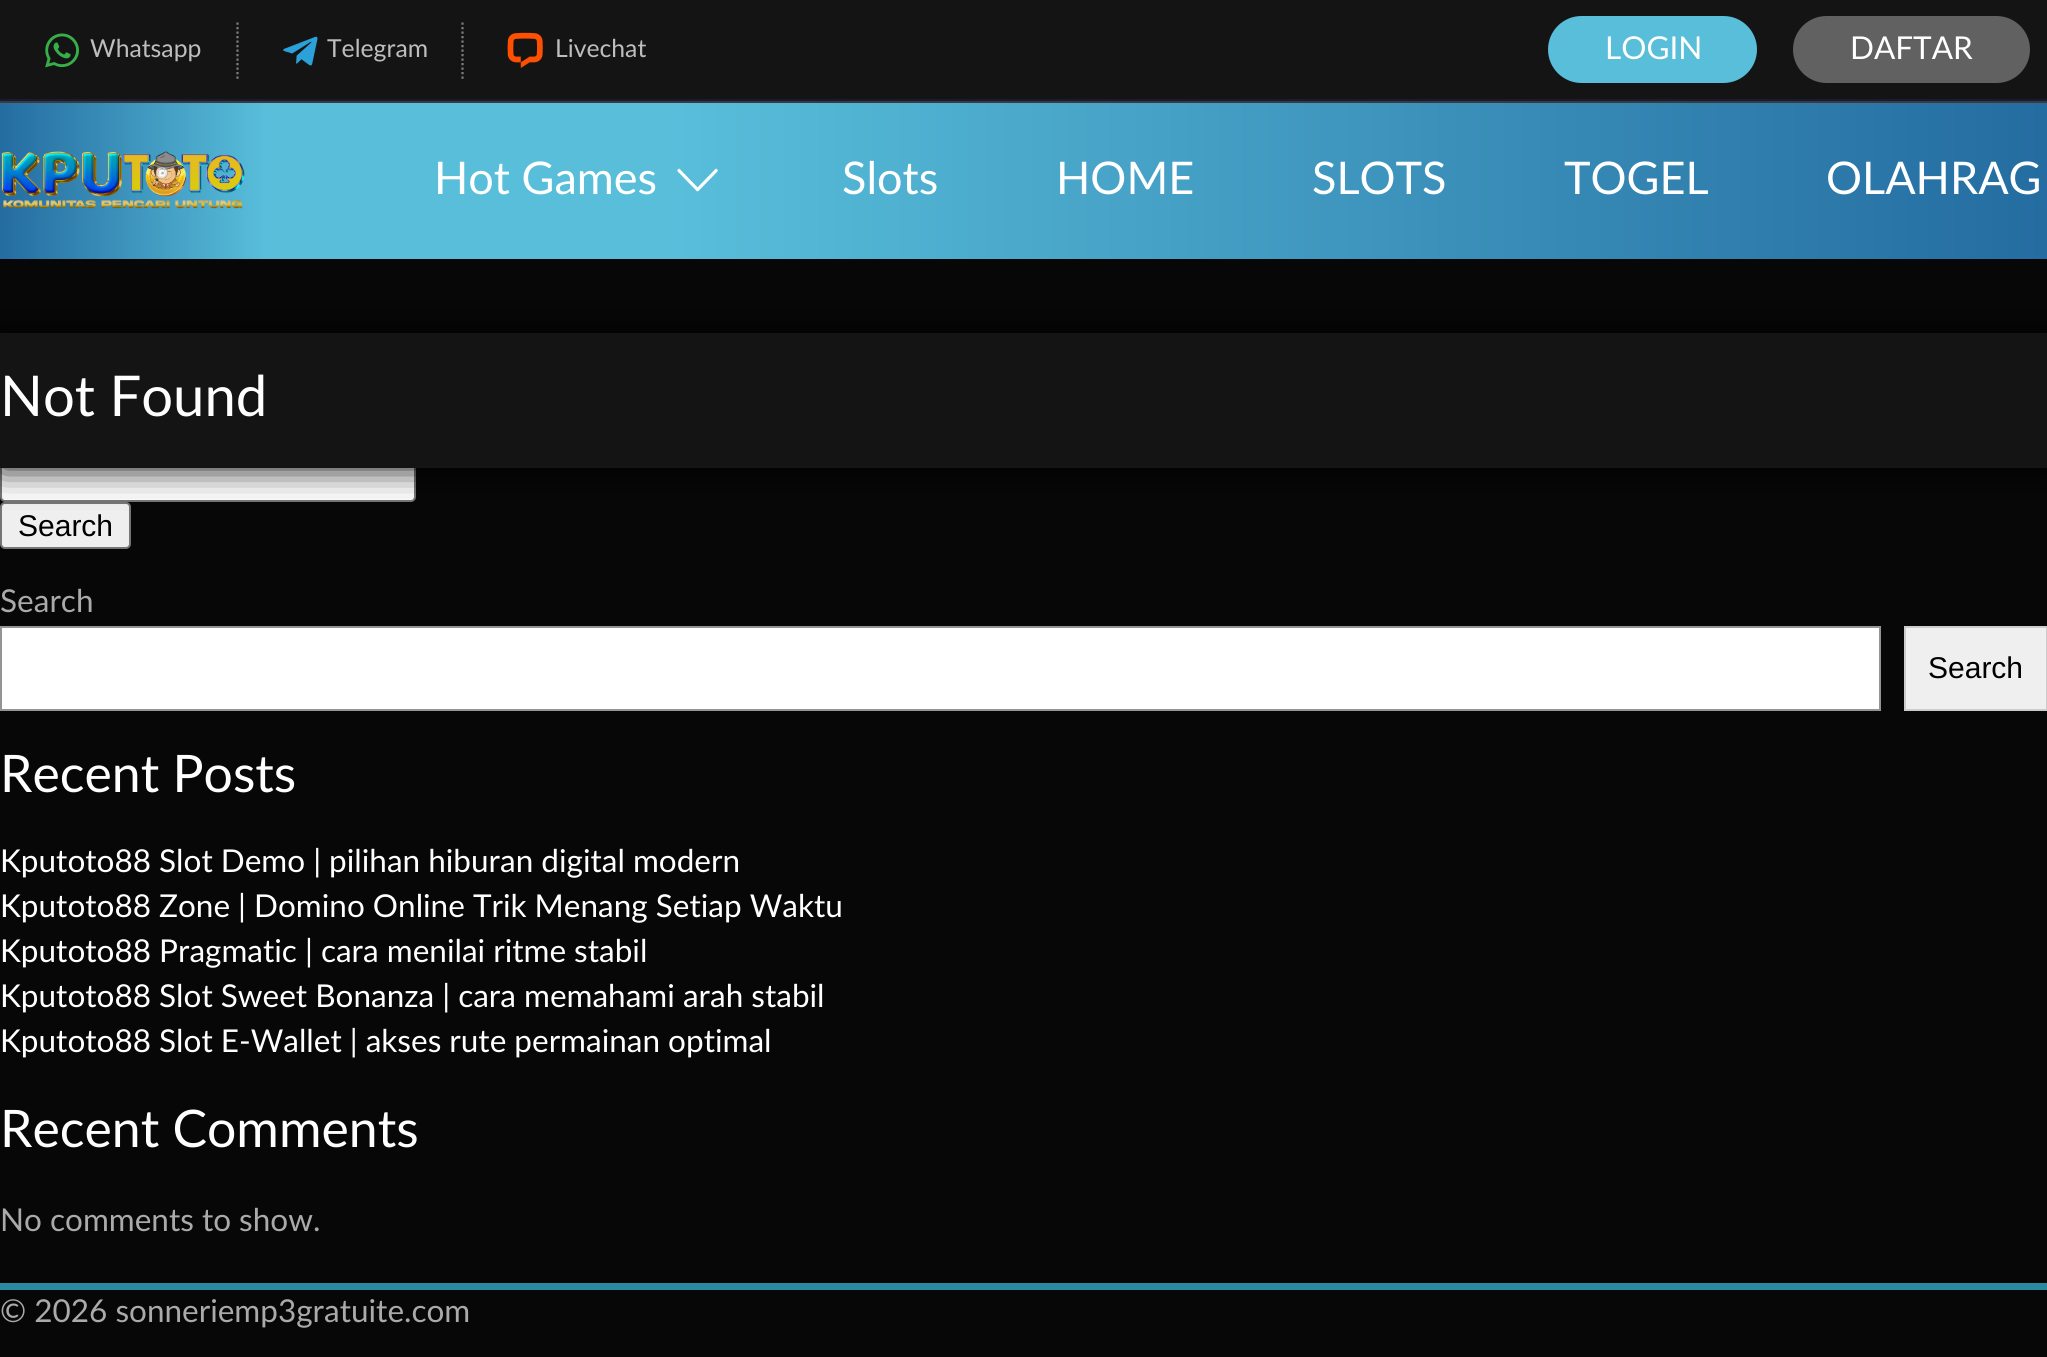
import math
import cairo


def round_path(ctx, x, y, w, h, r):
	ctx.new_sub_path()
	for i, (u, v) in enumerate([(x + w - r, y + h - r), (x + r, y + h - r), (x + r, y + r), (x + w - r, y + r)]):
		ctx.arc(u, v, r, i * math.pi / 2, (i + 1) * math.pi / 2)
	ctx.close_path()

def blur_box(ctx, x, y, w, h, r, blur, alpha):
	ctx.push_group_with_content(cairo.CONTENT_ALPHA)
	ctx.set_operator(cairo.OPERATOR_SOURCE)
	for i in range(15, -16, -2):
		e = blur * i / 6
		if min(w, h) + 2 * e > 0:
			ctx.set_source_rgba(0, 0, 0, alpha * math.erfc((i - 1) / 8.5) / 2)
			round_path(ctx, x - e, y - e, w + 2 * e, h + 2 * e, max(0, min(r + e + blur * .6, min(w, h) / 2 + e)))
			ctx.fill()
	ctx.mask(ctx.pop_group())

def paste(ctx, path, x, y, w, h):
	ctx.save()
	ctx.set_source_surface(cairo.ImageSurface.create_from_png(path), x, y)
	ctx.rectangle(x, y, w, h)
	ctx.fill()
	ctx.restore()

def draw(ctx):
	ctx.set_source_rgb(0.031, 0.031, 0.031)
	ctx.paint()
	ctx.set_source_rgb(0.082, 0.082, 0.082)
	ctx.rectangle(0, 0, 2047, 99)
	ctx.fill()
	ctx.set_source_rgb(0.09, 0.106, 0.204)
	ctx.rectangle(0, 99, 2047, 2)
	ctx.fill()
	paste(ctx, 'media/1.png', 45, 33, 34, 35)
	ctx.select_font_face('Lato')
	ctx.set_font_size(24.75)
	ctx.set_source_rgb(0.745, 0.745, 0.745)
	ctx.move_to(90, 57)
	ctx.show_text('Whatsapp')
	ctx.new_path()
	ctx.move_to(237.5, 22.5)
	ctx.line_to(237.5, 79)
	ctx.set_source_rgb(0.49, 0.49, 0.49)
	ctx.set_line_width(2.2)
	ctx.set_dash([2.25, 2.25])
	ctx.stroke()
	paste(ctx, 'media/2.png', 283, 36, 35, 30)
	ctx.set_source_rgb(0.745, 0.745, 0.745)
	ctx.move_to(327, 57)
	ctx.show_text('Telegram')
	ctx.new_path()
	ctx.move_to(462.5, 22.5)
	ctx.line_to(462.5, 79)
	ctx.set_source_rgb(0.49, 0.49, 0.49)
	ctx.stroke()
	paste(ctx, 'media/3.png', 507, 32, 36, 36)
	ctx.set_source_rgb(0.745, 0.745, 0.745)
	ctx.move_to(555, 57)
	ctx.show_text('Livechat')
	ctx.set_source_rgb(0.345, 0.745, 0.855)
	round_path(ctx, 1548, 16, 209, 67, 33.5)
	ctx.fill()
	ctx.set_font_size(31.5)
	ctx.set_source_rgb(1, 1, 1)
	ctx.move_to(1605, 59)
	ctx.show_text('LOGIN')
	ctx.set_source_rgb(0.38, 0.38, 0.38)
	round_path(ctx, 1793, 16, 237, 67, 33.5)
	ctx.fill()
	ctx.set_source_rgb(1, 1, 1)
	ctx.move_to(1850, 59)
	ctx.show_text('DAFTAR')
	gradient = cairo.LinearGradient(0, 181, 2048, 181)
	gradient.add_color_stop_rgba(0, 0.141, 0.424, 0.631, 1)
	gradient.add_color_stop_rgba(0.13, 0.345, 0.745, 0.855, 1)
	gradient.add_color_stop_rgba(0.33, 0.345, 0.745, 0.855, 1)
	gradient.add_color_stop_rgba(1, 0.141, 0.424, 0.631, 1)
	ctx.set_source(gradient)
	ctx.rectangle(0, 103, 2047, 156)
	ctx.fill()
	ctx.set_source_rgb(0.231, 0.231, 0.231)
	ctx.rectangle(0, 101, 2047, 2)
	ctx.fill()
	paste(ctx, 'media/4.png', 1, 151, 244, 58)
	paste(ctx, 'media/5.png', 677, 168, 41, 24)
	ctx.set_font_size(45)
	ctx.set_source_rgb(1, 1, 1)
	for x, y, s in [
		(434, 194, 'Hot Games'),
		(842, 194, 'Slots'),
		(1056, 194, 'HOME'),
		(1312, 194, 'SLOTS'),
		(1564, 194, 'TOGEL'),
		(1826, 194, 'OLAHRAG'),
	]:
		ctx.move_to(x, y)
		ctx.show_text(s)
	round_path(ctx, 1, 456, 414, 45, 4)
	ctx.fill_preserve()
	ctx.set_source_rgb(0.463, 0.463, 0.463)
	ctx.set_line_width(2)
	ctx.set_dash([])
	ctx.stroke()
	ctx.set_source_rgb(0.937, 0.937, 0.937)
	round_path(ctx, 1, 503, 129, 45, 4)
	ctx.fill_preserve()
	ctx.set_source_rgb(0.463, 0.463, 0.463)
	ctx.stroke()
	ctx.set_source_rgb(0, 0, 0)
	blur_box(ctx, 0, 333, 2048, 135, 0, 17, 1)
	ctx.set_source_rgb(0.082, 0.082, 0.082)
	ctx.rectangle(0, 333, 2047, 135)
	ctx.fill()
	ctx.set_font_size(56.25)
	ctx.set_source_rgb(1, 1, 1)
	ctx.move_to(0, 416)
	ctx.show_text('Not Found')
	ctx.select_font_face('Liberation Sans')
	ctx.set_font_size(30)
	ctx.set_source_rgb(0, 0, 0)
	ctx.move_to(18, 536)
	ctx.show_text('Search')
	ctx.select_font_face('Lato')
	ctx.set_font_size(31.5)
	ctx.set_source_rgb(0.667, 0.667, 0.667)
	ctx.move_to(0, 612)
	ctx.show_text('Search')
	ctx.set_source_rgb(1, 1, 1)
	ctx.rectangle(1, 627, 1879, 83)
	ctx.fill_preserve()
	ctx.set_source_rgb(0.58, 0.58, 0.58)
	ctx.stroke()
	ctx.set_source_rgb(0.937, 0.937, 0.937)
	ctx.rectangle(1905, 627, 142, 83)
	ctx.fill_preserve()
	ctx.set_source_rgb(0.8, 0.8, 0.8)
	ctx.stroke()
	ctx.select_font_face('Liberation Sans')
	ctx.set_font_size(30)
	ctx.set_source_rgb(0, 0, 0)
	ctx.move_to(1928, 678)
	ctx.show_text('Search')
	ctx.select_font_face('Lato')
	ctx.set_font_size(51.75)
	ctx.set_source_rgb(1, 1, 1)
	ctx.move_to(0, 792)
	ctx.show_text('Recent Posts')
	ctx.set_font_size(31.5)
	for x, y, s in [
		(0, 872, 'Kputoto88 Slot Demo | pilihan hiburan digital modern'),
		(0, 917, 'Kputoto88 Zone | Domino Online Trik Menang Setiap Waktu'),
		(0, 962, 'Kputoto88 Pragmatic | cara menilai ritme stabil'),
		(0, 1007, 'Kputoto88 Slot Sweet Bonanza | cara memahami arah stabil'),
		(0, 1052, 'Kputoto88 Slot E-Wallet | akses rute permainan optimal'),
	]:
		ctx.move_to(x, y)
		ctx.show_text(s)
	ctx.set_font_size(51.75)
	ctx.move_to(0, 1147)
	ctx.show_text('Recent Comments')
	ctx.set_font_size(31.5)
	ctx.set_source_rgb(0.667, 0.667, 0.667)
	ctx.move_to(0, 1231)
	ctx.show_text('No comments to show.')
	ctx.set_source_rgb(0.173, 0.541, 0.627)
	ctx.rectangle(0, 1283, 2047, 7)
	ctx.fill()
	ctx.set_source_rgb(0.667, 0.667, 0.667)
	ctx.move_to(0, 1322)
	ctx.show_text('© 2026 sonneriemp3gratuite.com')


surface = cairo.ImageSurface(cairo.FORMAT_RGB24, 2047, 1357)
ctx = cairo.Context(surface)
options = cairo.FontOptions()
options.set_hint_metrics(cairo.HINT_METRICS_OFF)
options.set_hint_style(cairo.HINT_STYLE_NONE)
ctx.set_font_options(options)
ctx.set_miter_limit(4)
draw(ctx)
surface.write_to_png('image.png')
